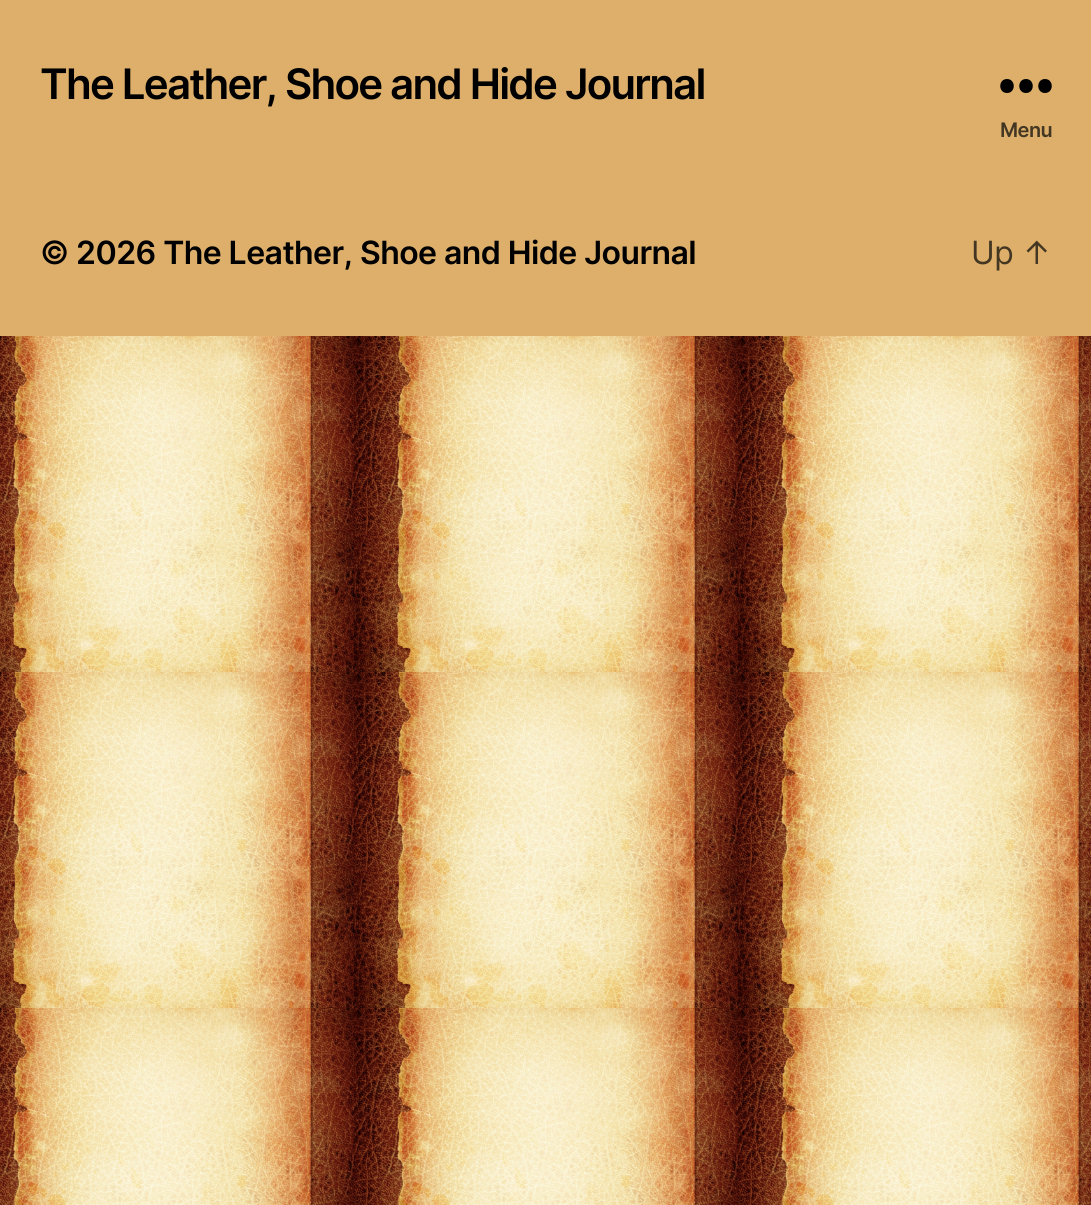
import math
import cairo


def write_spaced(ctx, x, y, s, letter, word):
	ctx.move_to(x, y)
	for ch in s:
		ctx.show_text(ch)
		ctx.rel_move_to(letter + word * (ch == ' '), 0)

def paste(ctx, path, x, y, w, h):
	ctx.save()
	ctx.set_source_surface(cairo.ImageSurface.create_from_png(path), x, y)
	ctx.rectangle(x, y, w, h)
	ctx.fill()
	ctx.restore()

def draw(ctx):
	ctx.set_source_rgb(1, 1, 1)
	ctx.paint()
	paste(ctx, 'media/1.png', 0, 336, 1091, 869)
	ctx.set_source_rgb(0.867, 0.686, 0.416)
	ctx.rectangle(0, 0, 1091, 336)
	ctx.fill()
	ctx.select_font_face('Inter SemiBold')
	ctx.set_font_size(42)
	ctx.set_source_rgb(0, 0, 0)
	write_spaced(ctx, 40, 99, 'The Leather, Shoe and Hide Journal', -1.75, 0)
	ctx.set_fill_rule(cairo.FILL_RULE_EVEN_ODD)
	ctx.new_path()
	ctx.move_to(1007, 93)
	ctx.curve_to(998, 93, 998, 79, 1007, 79)
	ctx.curve_to(1016, 79, 1016, 93, 1007, 93)
	ctx.close_path()
	ctx.move_to(1026, 93)
	ctx.curve_to(1017, 93, 1017, 79, 1026, 79)
	ctx.curve_to(1035, 79, 1035, 93, 1026, 93)
	ctx.close_path()
	ctx.move_to(1045, 93)
	ctx.curve_to(1036, 93, 1036, 79, 1045, 79)
	ctx.curve_to(1054, 79, 1054, 93, 1045, 93)
	ctx.close_path()
	ctx.fill()
	ctx.set_font_size(20)
	ctx.set_source_rgb(0.263, 0.212, 0.133)
	write_spaced(ctx, 1000, 137, 'Menu', -0.55, 0)
	ctx.set_font_size(32)
	ctx.set_source_rgb(0, 0, 0)
	write_spaced(ctx, 40, 264, '© 2026 The Leather, Shoe and Hide Journal', -0.55, 0)
	ctx.select_font_face('Inter')
	ctx.set_source_rgb(0.263, 0.212, 0.133)
	write_spaced(ctx, 971, 264, 'Up ↑', -0.55, 0)


surface = cairo.ImageSurface(cairo.FORMAT_RGB24, 1091, 1205)
ctx = cairo.Context(surface)
options = cairo.FontOptions()
options.set_hint_metrics(cairo.HINT_METRICS_OFF)
options.set_hint_style(cairo.HINT_STYLE_NONE)
ctx.set_font_options(options)
ctx.set_miter_limit(4)
draw(ctx)
surface.write_to_png('image.png')
